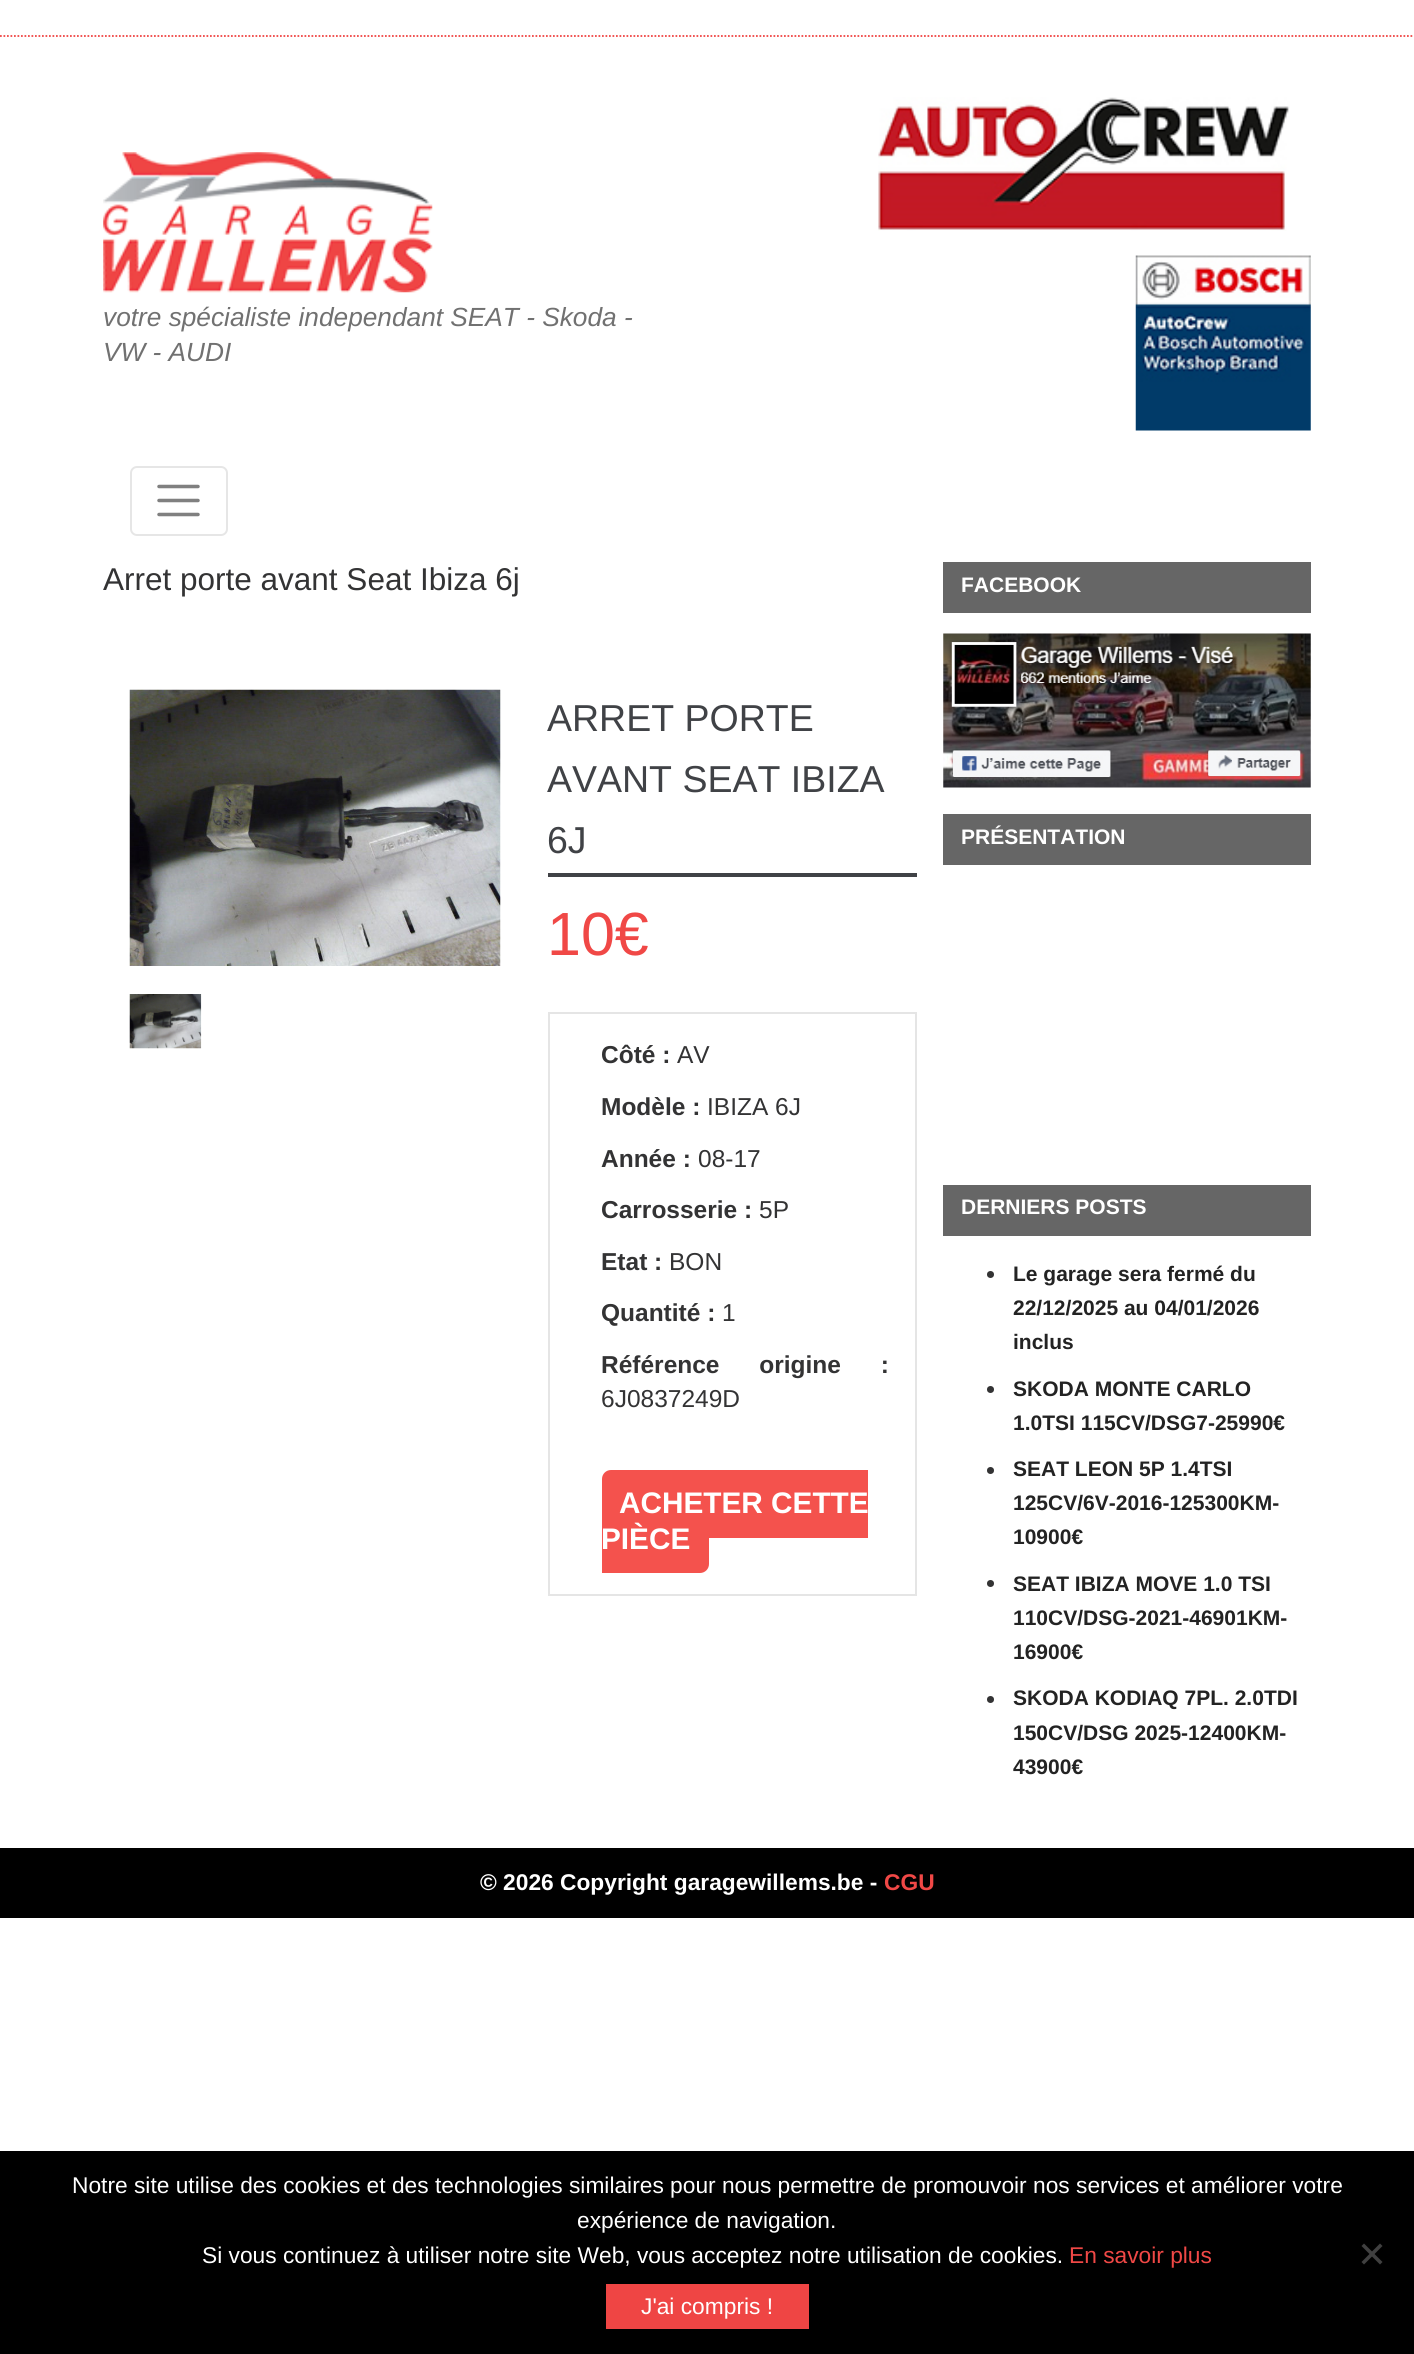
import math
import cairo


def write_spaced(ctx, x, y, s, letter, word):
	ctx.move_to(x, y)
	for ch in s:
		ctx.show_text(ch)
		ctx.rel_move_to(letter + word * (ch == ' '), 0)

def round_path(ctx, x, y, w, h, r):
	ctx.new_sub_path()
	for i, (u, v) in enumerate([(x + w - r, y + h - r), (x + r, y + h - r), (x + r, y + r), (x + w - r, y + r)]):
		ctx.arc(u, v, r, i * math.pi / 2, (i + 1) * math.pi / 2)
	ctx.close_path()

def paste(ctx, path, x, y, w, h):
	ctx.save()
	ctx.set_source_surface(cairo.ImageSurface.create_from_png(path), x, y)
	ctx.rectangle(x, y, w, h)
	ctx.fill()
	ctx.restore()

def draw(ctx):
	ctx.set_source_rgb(1, 1, 1)
	ctx.paint()
	ctx.new_path()
	ctx.move_to(0, 36)
	ctx.line_to(1414, 36)
	ctx.set_source_rgb(0.937, 0.271, 0.267)
	ctx.set_line_width(1.8)
	ctx.set_dash([1.75, 1.75])
	ctx.stroke()
	paste(ctx, 'media/1.png', 103, 152, 330, 141)
	ctx.select_font_face('Liberation Sans', cairo.FONT_SLANT_ITALIC)
	ctx.set_font_size(26.25)
	ctx.set_source_rgb(0.443, 0.443, 0.443)
	ctx.move_to(103, 326)
	ctx.show_text('votre spécialiste independant SEAT - Skoda -')
	ctx.move_to(103, 361)
	ctx.show_text('VW - AUDI')
	paste(ctx, 'media/2.png', 878, 97, 412, 134)
	paste(ctx, 'media/3.png', 1135, 255, 176, 176)
	round_path(ctx, 131, 467, 96, 68, 6)
	ctx.set_source_rgb(0.902, 0.902, 0.902)
	ctx.set_line_width(2)
	ctx.set_dash([])
	ctx.stroke()
	ctx.new_path()
	ctx.move_to(159, 486.5)
	ctx.line_to(198, 486.5)
	ctx.move_to(159, 500.5)
	ctx.line_to(198, 500.5)
	ctx.move_to(159, 514.5)
	ctx.line_to(198, 514.5)
	ctx.set_source_rgb(0.502, 0.502, 0.502)
	ctx.set_line_width(3.5)
	ctx.set_line_cap(cairo.LINE_CAP_ROUND)
	ctx.stroke()
	ctx.select_font_face('Liberation Sans')
	ctx.set_font_size(31.5)
	ctx.set_source_rgb(0.2, 0.2, 0.204)
	ctx.move_to(103, 590)
	ctx.show_text('Arret porte avant Seat Ibiza 6j')
	paste(ctx, 'media/4.png', 129, 689, 372, 277)
	paste(ctx, 'media/5.png', 129, 994, 73, 55)
	ctx.set_source_rgb(0.251, 0.259, 0.275)
	ctx.rectangle(548, 873, 369, 4)
	ctx.fill()
	ctx.set_font_size(37.5)
	for x, y, s in [
		(547, 731, 'ARRET PORTE'),
		(547, 792, 'AVANT SEAT IBIZA'),
		(547, 853, '6J'),
	]:
		ctx.move_to(x, y)
		ctx.show_text(s)
	ctx.set_font_size(61)
	ctx.set_source_rgb(0.941, 0.282, 0.275)
	ctx.move_to(547, 955)
	ctx.show_text('10€')
	ctx.rectangle(549, 1013, 367, 582)
	ctx.set_source_rgb(0.898, 0.898, 0.898)
	ctx.set_line_width(2)
	ctx.set_line_cap(cairo.LINE_CAP_BUTT)
	ctx.stroke()
	ctx.select_font_face('Liberation Sans', cairo.FONT_SLANT_NORMAL, cairo.FONT_WEIGHT_BOLD)
	ctx.set_font_size(24.5)
	ctx.set_source_rgb(0.2, 0.2, 0.204)
	ctx.move_to(601, 1063)
	ctx.show_text('Côté :')
	ctx.select_font_face('Liberation Sans')
	ctx.move_to(677, 1063)
	ctx.show_text('AV')
	ctx.select_font_face('Liberation Sans', cairo.FONT_SLANT_NORMAL, cairo.FONT_WEIGHT_BOLD)
	ctx.move_to(601, 1115)
	ctx.show_text('Modèle :')
	ctx.select_font_face('Liberation Sans')
	ctx.move_to(707, 1115)
	ctx.show_text('IBIZA 6J')
	ctx.select_font_face('Liberation Sans', cairo.FONT_SLANT_NORMAL, cairo.FONT_WEIGHT_BOLD)
	ctx.move_to(601, 1167)
	ctx.show_text('Année :')
	ctx.select_font_face('Liberation Sans')
	ctx.move_to(698, 1167)
	ctx.show_text('08-17')
	ctx.select_font_face('Liberation Sans', cairo.FONT_SLANT_NORMAL, cairo.FONT_WEIGHT_BOLD)
	ctx.move_to(601, 1218)
	ctx.show_text('Carrosserie :')
	ctx.select_font_face('Liberation Sans')
	ctx.move_to(759, 1218)
	ctx.show_text('5P')
	ctx.select_font_face('Liberation Sans', cairo.FONT_SLANT_NORMAL, cairo.FONT_WEIGHT_BOLD)
	ctx.move_to(601, 1270)
	ctx.show_text('Etat :')
	ctx.select_font_face('Liberation Sans')
	ctx.move_to(669, 1270)
	ctx.show_text('BON')
	ctx.select_font_face('Liberation Sans', cairo.FONT_SLANT_NORMAL, cairo.FONT_WEIGHT_BOLD)
	ctx.move_to(601, 1321)
	ctx.show_text('Quantité :')
	ctx.select_font_face('Liberation Sans')
	ctx.move_to(722, 1321)
	ctx.show_text('1')
	ctx.select_font_face('Liberation Sans', cairo.FONT_SLANT_NORMAL, cairo.FONT_WEIGHT_BOLD)
	write_spaced(ctx, 601, 1373, 'Référence origine :', 0, 33)
	ctx.select_font_face('Liberation Sans')
	ctx.move_to(601, 1407)
	ctx.show_text('6J0837249D')
	ctx.set_source_rgb(0.957, 0.322, 0.302)
	ctx.new_path()
	ctx.move_to(611, 1470)
	ctx.line_to(868, 1470)
	ctx.line_to(868, 1538)
	ctx.line_to(611, 1538)
	ctx.curve_to(606, 1538, 602, 1534, 602, 1529)
	ctx.line_to(602, 1479)
	ctx.curve_to(602, 1474, 606, 1470, 611, 1470)
	ctx.close_path()
	ctx.fill()
	ctx.new_path()
	ctx.move_to(602, 1505)
	ctx.line_to(700, 1505)
	ctx.curve_to(705, 1505, 709, 1509, 709, 1514)
	ctx.line_to(709, 1564)
	ctx.curve_to(709, 1569, 705, 1573, 700, 1573)
	ctx.line_to(602, 1573)
	ctx.close_path()
	ctx.fill()
	ctx.select_font_face('Liberation Sans', cairo.FONT_SLANT_NORMAL, cairo.FONT_WEIGHT_BOLD)
	ctx.set_font_size(29.75)
	ctx.set_source_rgb(1, 1, 1)
	ctx.move_to(619, 1513)
	ctx.show_text('ACHETER CETTE')
	ctx.move_to(601, 1549)
	ctx.show_text('PIÈCE')
	ctx.set_source_rgb(0.4, 0.4, 0.4)
	ctx.rectangle(943, 562, 368, 51)
	ctx.fill()
	ctx.set_font_size(21)
	ctx.set_source_rgb(1, 1, 1)
	ctx.move_to(961, 592)
	ctx.show_text('FACEBOOK')
	paste(ctx, 'media/6.png', 943, 633, 368, 155)
	ctx.set_source_rgb(0.4, 0.4, 0.4)
	ctx.rectangle(943, 814, 368, 51)
	ctx.fill()
	ctx.set_source_rgb(1, 1, 1)
	ctx.move_to(961, 844)
	ctx.show_text('PRÉSENTATION')
	ctx.set_source_rgb(0.4, 0.4, 0.4)
	ctx.rectangle(943, 1185, 368, 51)
	ctx.fill()
	ctx.set_source_rgb(1, 1, 1)
	ctx.move_to(961, 1214)
	ctx.show_text('DERNIERS POSTS')
	ctx.set_source_rgb(0.2, 0.2, 0.204)
	ctx.new_path()
	ctx.arc(990.5, 1274.5, 3.5, 0, 2 * math.pi)
	ctx.fill()
	ctx.set_source_rgb(0.137, 0.137, 0.137)
	for x, y, s in [
		(1013, 1281, 'Le garage sera fermé du'),
		(1013, 1315, '22/12/2025 au 04/01/2026'),
		(1013, 1349, 'inclus'),
	]:
		ctx.move_to(x, y)
		ctx.show_text(s)
	ctx.set_source_rgb(0.2, 0.2, 0.204)
	ctx.new_path()
	ctx.arc(990.5, 1389.5, 3.5, 0, 2 * math.pi)
	ctx.fill()
	ctx.set_source_rgb(0.137, 0.137, 0.137)
	ctx.move_to(1013, 1396)
	ctx.show_text('SKODA MONTE CARLO')
	ctx.move_to(1013, 1430)
	ctx.show_text('1.0TSI 115CV/DSG7-25990€')
	ctx.set_source_rgb(0.2, 0.2, 0.204)
	ctx.new_path()
	ctx.arc(990.5, 1470.5, 3.5, 0, 2 * math.pi)
	ctx.fill()
	ctx.set_source_rgb(0.137, 0.137, 0.137)
	for x, y, s in [
		(1013, 1476, 'SEAT LEON 5P 1.4TSI'),
		(1013, 1510, '125CV/6V-2016-125300KM-'),
		(1013, 1544, '10900€'),
	]:
		ctx.move_to(x, y)
		ctx.show_text(s)
	ctx.set_source_rgb(0.2, 0.2, 0.204)
	ctx.new_path()
	ctx.arc(990.5, 1583.5, 3.5, 0, 2 * math.pi)
	ctx.fill()
	ctx.set_source_rgb(0.137, 0.137, 0.137)
	for x, y, s in [
		(1013, 1591, 'SEAT IBIZA MOVE 1.0 TSI'),
		(1013, 1625, '110CV/DSG-2021-46901KM-'),
		(1013, 1659, '16900€'),
	]:
		ctx.move_to(x, y)
		ctx.show_text(s)
	ctx.set_source_rgb(0.2, 0.2, 0.204)
	ctx.new_path()
	ctx.arc(990.5, 1699.5, 3.5, 0, 2 * math.pi)
	ctx.fill()
	ctx.set_source_rgb(0.137, 0.137, 0.137)
	for x, y, s in [
		(1013, 1705, 'SKODA KODIAQ 7PL. 2.0TDI'),
		(1013, 1740, '150CV/DSG 2025-12400KM-'),
		(1013, 1774, '43900€'),
	]:
		ctx.move_to(x, y)
		ctx.show_text(s)
	ctx.set_source_rgb(0, 0, 0)
	ctx.rectangle(0, 1848, 1414, 70)
	ctx.fill()
	ctx.set_font_size(22.75)
	ctx.set_source_rgb(1, 1, 1)
	ctx.move_to(480, 1890)
	ctx.show_text('© 2026 Copyright garagewillems.be -')
	ctx.set_source_rgb(0.941, 0.282, 0.275)
	ctx.move_to(884, 1890)
	ctx.show_text('CGU')
	ctx.set_source_rgb(0, 0, 0)
	ctx.rectangle(0, 2151, 1414, 203)
	ctx.fill()
	ctx.select_font_face('Liberation Sans')
	ctx.set_source_rgb(1, 1, 1)
	for x, y, s in [
		(72, 2193, 'Notre site utilise des cookies et des technologies similaires pour nous permettre de promouvoir nos services et améliorer votre'),
		(577, 2228, 'expérience de navigation.'),
		(202, 2263, 'Si vous continuez à utiliser notre site Web, vous acceptez notre utilisation de cookies.'),
	]:
		ctx.move_to(x, y)
		ctx.show_text(s)
	ctx.set_source_rgb(0.941, 0.282, 0.275)
	ctx.move_to(1069, 2263)
	ctx.show_text('En savoir plus')
	ctx.set_source_rgb(0.251, 0.251, 0.251)
	ctx.new_path()
	ctx.move_to(1380, 2243.5)
	ctx.line_to(1382.5, 2246)
	ctx.line_to(1364, 2264.5)
	ctx.line_to(1361.5, 2262)
	ctx.close_path()
	ctx.fill()
	ctx.new_path()
	ctx.move_to(1361.5, 2246)
	ctx.line_to(1364, 2243.5)
	ctx.line_to(1382.5, 2262)
	ctx.line_to(1380, 2264.5)
	ctx.close_path()
	ctx.fill()
	ctx.set_source_rgb(0.937, 0.271, 0.267)
	ctx.rectangle(606, 2284, 203, 45)
	ctx.fill()
	ctx.set_source_rgb(1, 1, 1)
	ctx.move_to(641, 2314)
	ctx.show_text('J\'ai compris !')


surface = cairo.ImageSurface(cairo.FORMAT_RGB24, 1414, 2354)
ctx = cairo.Context(surface)
options = cairo.FontOptions()
options.set_hint_metrics(cairo.HINT_METRICS_OFF)
options.set_hint_style(cairo.HINT_STYLE_NONE)
ctx.set_font_options(options)
ctx.set_miter_limit(4)
draw(ctx)
surface.write_to_png('image.png')
